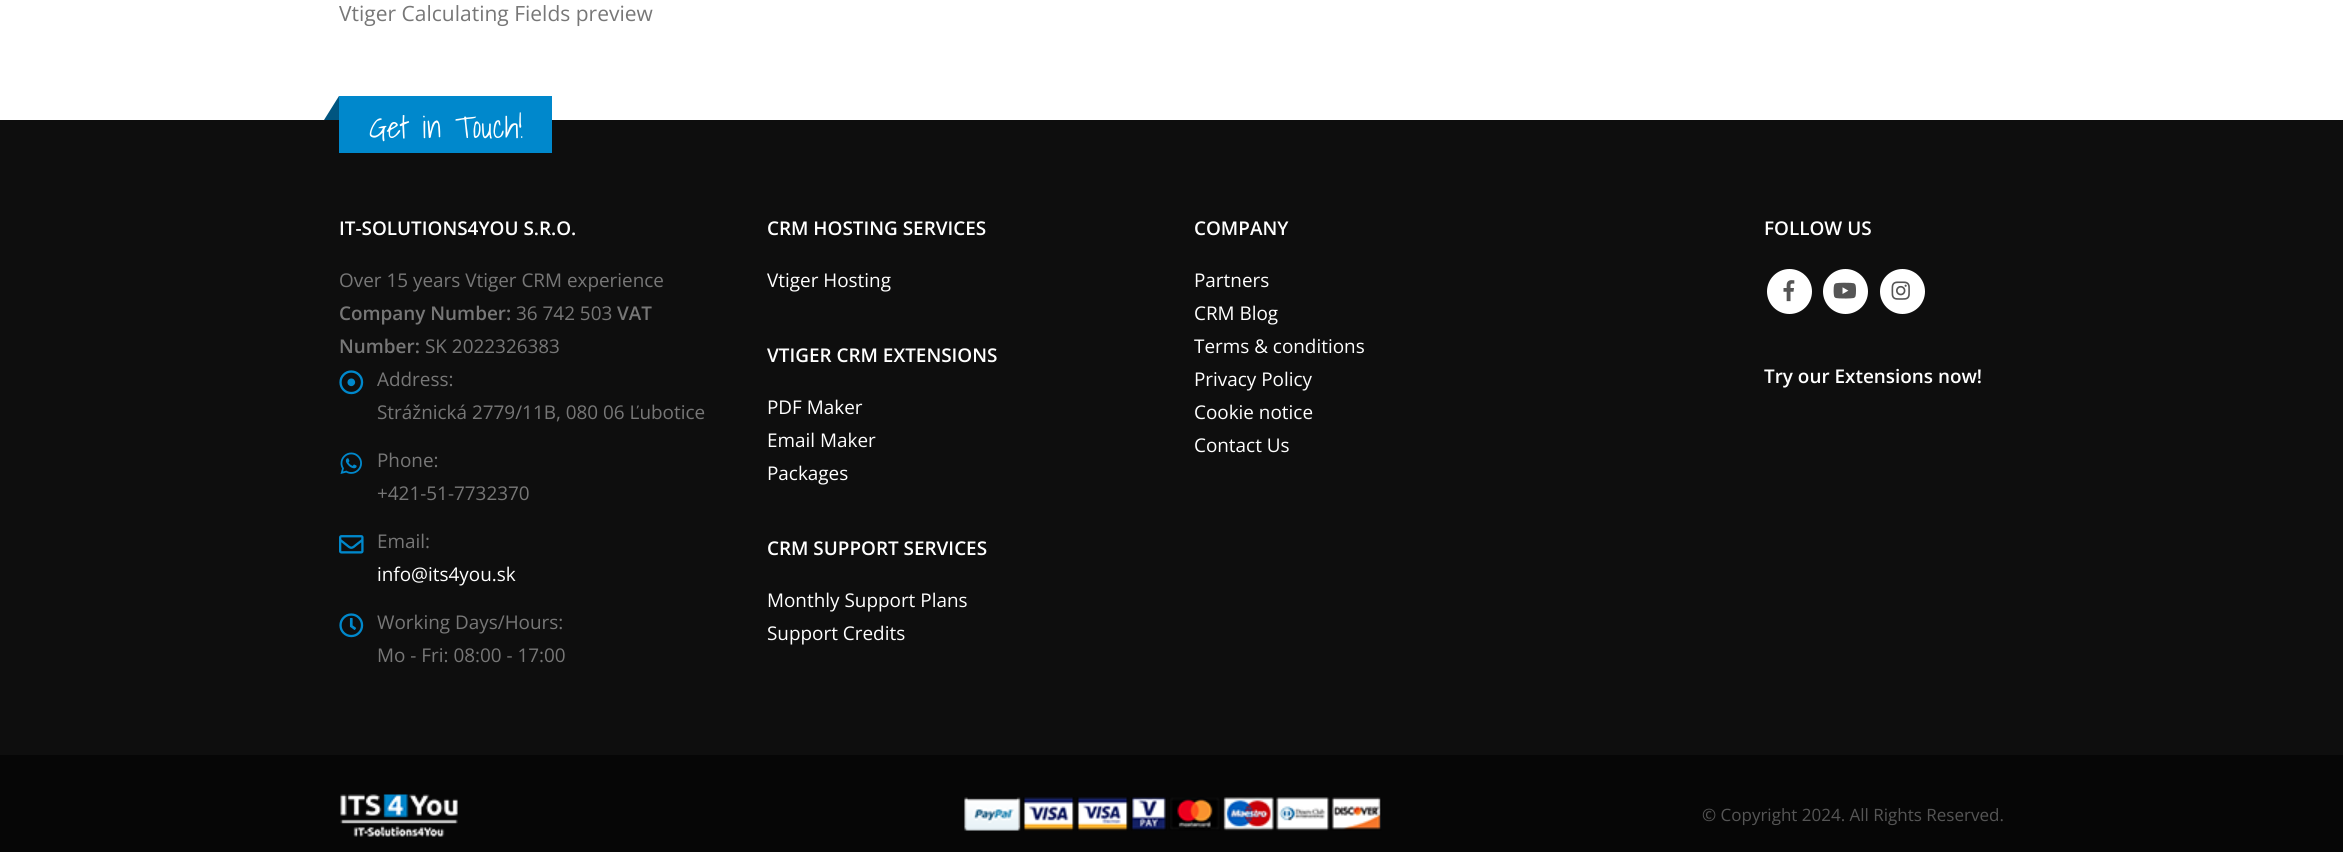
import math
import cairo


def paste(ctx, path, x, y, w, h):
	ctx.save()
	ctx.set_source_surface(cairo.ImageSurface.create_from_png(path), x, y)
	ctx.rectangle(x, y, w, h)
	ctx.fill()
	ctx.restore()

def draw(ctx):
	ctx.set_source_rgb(1, 1, 1)
	ctx.paint()
	ctx.select_font_face('Open Sans')
	ctx.set_font_size(21)
	ctx.set_source_rgb(0.467, 0.467, 0.467)
	ctx.move_to(339, 21)
	ctx.show_text('Vtiger Calculating Fields preview')
	ctx.set_source_rgb(0.055, 0.055, 0.055)
	ctx.rectangle(0, 120, 2343, 635)
	ctx.fill()
	ctx.set_source_rgb(0, 0.533, 0.8)
	ctx.rectangle(339, 96, 213, 57)
	ctx.fill()
	ctx.set_source_rgb(0, 0.333, 0.502)
	ctx.new_path()
	ctx.move_to(339, 96)
	ctx.line_to(339, 120)
	ctx.line_to(324, 120)
	ctx.close_path()
	ctx.fill()
	ctx.select_font_face('Shadows Into Light')
	ctx.set_font_size(30.25)
	ctx.set_source_rgb(1, 1, 1)
	ctx.move_to(369, 138)
	ctx.show_text('Get in Touch!')
	ctx.select_font_face('Open Sans SemiBold')
	ctx.set_font_size(18.9)
	ctx.move_to(339, 235)
	ctx.show_text('IT-SOLUTIONS4YOU S.R.O.')
	ctx.select_font_face('Open Sans')
	ctx.set_source_rgb(0.467, 0.467, 0.467)
	ctx.move_to(339, 287)
	ctx.show_text('Over 15 years Vtiger CRM experience')
	ctx.select_font_face('Open Sans SemiBold')
	ctx.move_to(339, 320)
	ctx.show_text('Company Number:')
	ctx.select_font_face('Open Sans')
	ctx.move_to(516, 320)
	ctx.show_text('36 742 503')
	ctx.select_font_face('Open Sans SemiBold')
	ctx.move_to(617, 320)
	ctx.show_text('VAT')
	ctx.move_to(339, 353)
	ctx.show_text('Number:')
	ctx.select_font_face('Open Sans')
	ctx.move_to(425, 353)
	ctx.show_text('SK 2022326383')
	paste(ctx, 'media/1.png', 339, 370, 25, 25)
	ctx.move_to(377, 386)
	ctx.show_text('Address:')
	ctx.move_to(377, 419)
	ctx.show_text('Strážnická 2779/11B, 080 06 Ľubotice')
	paste(ctx, 'media/2.png', 340, 452, 22, 22)
	ctx.move_to(377, 467)
	ctx.show_text('Phone:')
	ctx.move_to(377, 500)
	ctx.show_text('+421-51-7732370')
	paste(ctx, 'media/3.png', 339, 535, 25, 19)
	ctx.move_to(377, 548)
	ctx.show_text('Email:')
	ctx.set_source_rgb(1, 1, 1)
	ctx.move_to(377, 581)
	ctx.show_text('info@its4you.sk')
	paste(ctx, 'media/4.png', 339, 613, 25, 25)
	ctx.set_source_rgb(0.467, 0.467, 0.467)
	ctx.move_to(377, 629)
	ctx.show_text('Working Days/Hours:')
	ctx.move_to(377, 662)
	ctx.show_text('Mo - Fri: 08:00 - 17:00')
	ctx.select_font_face('Open Sans SemiBold')
	ctx.set_source_rgb(1, 1, 1)
	ctx.move_to(767, 235)
	ctx.show_text('CRM HOSTING SERVICES')
	ctx.select_font_face('Open Sans')
	ctx.move_to(767, 287)
	ctx.show_text('Vtiger Hosting')
	ctx.select_font_face('Open Sans SemiBold')
	ctx.move_to(767, 362)
	ctx.show_text('VTIGER CRM EXTENSIONS')
	ctx.select_font_face('Open Sans')
	for x, y, s in [
		(767, 414, 'PDF Maker'),
		(767, 447, 'Email Maker'),
		(767, 480, 'Packages'),
	]:
		ctx.move_to(x, y)
		ctx.show_text(s)
	ctx.select_font_face('Open Sans SemiBold')
	ctx.move_to(767, 555)
	ctx.show_text('CRM SUPPORT SERVICES')
	ctx.select_font_face('Open Sans')
	ctx.move_to(767, 607)
	ctx.show_text('Monthly Support Plans')
	ctx.move_to(767, 640)
	ctx.show_text('Support Credits')
	ctx.select_font_face('Open Sans SemiBold')
	ctx.move_to(1194, 235)
	ctx.show_text('COMPANY')
	ctx.select_font_face('Open Sans')
	for x, y, s in [
		(1194, 287, 'Partners'),
		(1194, 320, 'CRM Blog'),
		(1194, 353, 'Terms & conditions'),
		(1194, 386, 'Privacy Policy'),
		(1194, 419, 'Cookie notice'),
		(1194, 452, 'Contact Us'),
	]:
		ctx.move_to(x, y)
		ctx.show_text(s)
	ctx.select_font_face('Open Sans SemiBold')
	ctx.move_to(1764, 235)
	ctx.show_text('FOLLOW US')
	ctx.new_path()
	ctx.arc(1789.5, 291.5, 22.5, 0, 2 * math.pi)
	ctx.fill()
	paste(ctx, 'media/5.png', 1783, 280, 12, 22)
	ctx.arc(1845.5, 291.5, 22.5, 0, 2 * math.pi)
	ctx.fill()
	paste(ctx, 'media/6.png', 1833, 282, 23, 17)
	ctx.arc(1902.5, 291.5, 22.5, 0, 2 * math.pi)
	ctx.fill()
	paste(ctx, 'media/7.png', 1891, 281, 19, 19)
	ctx.move_to(1764, 383)
	ctx.show_text('Try our Extensions now!')
	ctx.set_source_rgb(0.024, 0.024, 0.024)
	ctx.rectangle(0, 755, 2343, 97)
	ctx.fill()
	paste(ctx, 'media/8.png', 340, 794, 118, 43)
	paste(ctx, 'media/9.png', 964, 797, 418, 34)
	ctx.select_font_face('Open Sans')
	ctx.set_font_size(17)
	ctx.set_source_rgb(0.333, 0.333, 0.333)
	ctx.move_to(1702, 821)
	ctx.show_text('© Copyright 2024. All Rights Reserved.')


surface = cairo.ImageSurface(cairo.FORMAT_RGB24, 2343, 852)
ctx = cairo.Context(surface)
options = cairo.FontOptions()
options.set_hint_metrics(cairo.HINT_METRICS_OFF)
options.set_hint_style(cairo.HINT_STYLE_NONE)
ctx.set_font_options(options)
ctx.set_miter_limit(4)
draw(ctx)
surface.write_to_png('image.png')
